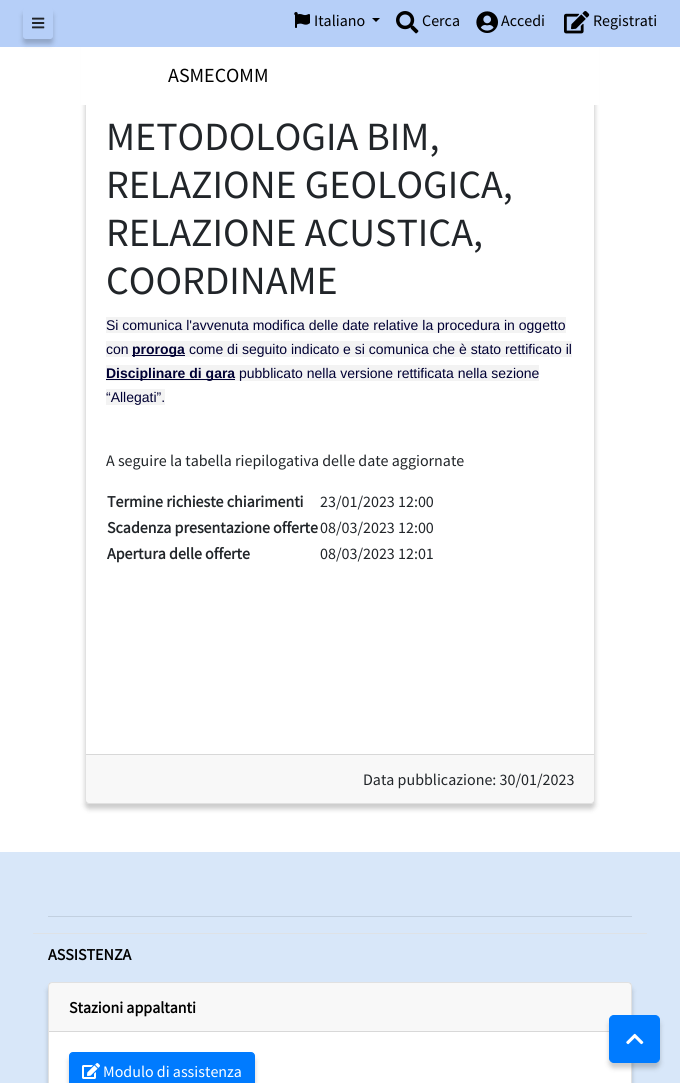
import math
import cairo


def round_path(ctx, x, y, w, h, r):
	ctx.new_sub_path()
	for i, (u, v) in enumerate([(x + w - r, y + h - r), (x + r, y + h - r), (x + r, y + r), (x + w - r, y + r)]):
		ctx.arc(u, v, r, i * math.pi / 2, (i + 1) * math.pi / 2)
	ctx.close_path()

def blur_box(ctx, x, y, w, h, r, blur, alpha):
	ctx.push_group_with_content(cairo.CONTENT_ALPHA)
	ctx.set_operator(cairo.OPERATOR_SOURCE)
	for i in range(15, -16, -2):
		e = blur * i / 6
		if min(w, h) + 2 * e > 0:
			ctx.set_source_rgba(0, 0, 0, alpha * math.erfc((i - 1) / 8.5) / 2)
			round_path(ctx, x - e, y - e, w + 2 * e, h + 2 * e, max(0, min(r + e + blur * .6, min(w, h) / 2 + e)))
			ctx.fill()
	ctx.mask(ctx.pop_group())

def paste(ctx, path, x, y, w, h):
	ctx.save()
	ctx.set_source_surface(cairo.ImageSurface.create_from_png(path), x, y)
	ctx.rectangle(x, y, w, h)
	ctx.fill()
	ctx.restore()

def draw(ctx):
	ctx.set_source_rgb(1, 1, 1)
	ctx.paint()
	ctx.set_source_rgb(0, 0, 0)
	blur_box(ctx, 85, -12, 510, 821, 4, 2.5, 0.2)
	ctx.set_source_rgb(1, 1, 1)
	round_path(ctx, 85, -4, 510, 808, 4)
	ctx.fill()
	round_path(ctx, 85.5, -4.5, 509, 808, 3.5)
	ctx.set_source_rgba(0, 0, 0, 0.12)
	ctx.set_line_width(1)
	ctx.stroke()
	ctx.set_source_rgb(0.714, 0.812, 0.969)
	ctx.rectangle(0, 0, 680, 47)
	ctx.fill()
	ctx.save()
	ctx.set_fill_rule(cairo.FILL_RULE_EVEN_ODD)
	ctx.new_path()
	ctx.move_to(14, 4)
	ctx.line_to(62, 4)
	ctx.line_to(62, 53)
	ctx.line_to(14, 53)
	ctx.close_path()
	ctx.move_to(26, 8)
	ctx.line_to(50, 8)
	ctx.curve_to(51.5, 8, 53, 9.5, 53, 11)
	ctx.line_to(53, 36)
	ctx.curve_to(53, 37.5, 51.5, 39, 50, 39)
	ctx.line_to(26, 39)
	ctx.curve_to(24.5, 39, 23, 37.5, 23, 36)
	ctx.line_to(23, 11)
	ctx.curve_to(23, 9.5, 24.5, 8, 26, 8)
	ctx.close_path()
	ctx.clip()
	ctx.set_source_rgb(0, 0, 0)
	blur_box(ctx, 23, 13, 30, 31, 3, 2.5, 0.2)
	ctx.restore()
	paste(ctx, 'media/1.png', 32, 17, 13, 12)
	paste(ctx, 'media/2.png', 294, 12, 16, 16)
	ctx.select_font_face('Source Sans Pro')
	ctx.set_font_size(16)
	ctx.set_source_rgb(0, 0, 0)
	ctx.move_to(314, 26)
	ctx.show_text('Italiano')
	ctx.new_path()
	ctx.move_to(372, 18)
	ctx.line_to(380, 18)
	ctx.line_to(376, 22)
	ctx.close_path()
	ctx.fill()
	paste(ctx, 'media/3.png', 396, 11, 23, 23)
	ctx.move_to(422, 26)
	ctx.show_text('Cerca')
	paste(ctx, 'media/4.png', 476, 11, 22, 22)
	ctx.move_to(501, 26)
	ctx.show_text('Accedi')
	paste(ctx, 'media/5.png', 564, 11, 26, 23)
	ctx.move_to(593, 26)
	ctx.show_text('Registrati')
	ctx.set_source_rgb(1, 1, 1)
	ctx.rectangle(81, 47, 518, 58)
	ctx.fill()
	ctx.set_font_size(20)
	ctx.set_source_rgb(0, 0, 0)
	ctx.move_to(168, 82)
	ctx.show_text('ASMECOMM')
	ctx.set_font_size(40)
	ctx.set_source_rgb(0.129, 0.145, 0.161)
	for x, y, s in [
		(106, 150, 'METODOLOGIA BIM,'),
		(106, 198, 'RELAZIONE GEOLOGICA,'),
		(106, 246, 'RELAZIONE ACUSTICA,'),
		(106, 294, 'COORDINAME'),
	]:
		ctx.move_to(x, y)
		ctx.show_text(s)
	ctx.set_source_rgb(0.953, 0.953, 0.953)
	ctx.rectangle(106, 317, 460, 16)
	ctx.fill()
	ctx.select_font_face('Liberation Sans')
	ctx.set_font_size(14)
	ctx.set_source_rgb(0, 0, 0.2)
	ctx.move_to(106, 330)
	ctx.show_text('Si comunica l\'avvenuta modifica delle date relative la procedura in oggetto')
	ctx.set_source_rgb(0.953, 0.953, 0.953)
	ctx.rectangle(106, 341, 466, 16)
	ctx.fill()
	ctx.set_source_rgb(0, 0, 0.2)
	ctx.move_to(106, 354)
	ctx.show_text('con')
	ctx.rectangle(132, 355, 53, 1)
	ctx.fill()
	ctx.select_font_face('Liberation Sans', cairo.FONT_SLANT_NORMAL, cairo.FONT_WEIGHT_BOLD)
	ctx.move_to(132, 354)
	ctx.show_text('proroga')
	ctx.select_font_face('Liberation Sans')
	ctx.move_to(189, 354)
	ctx.show_text('come di seguito indicato e si comunica che è stato rettificato il')
	ctx.set_source_rgb(0.953, 0.953, 0.953)
	ctx.rectangle(106, 365, 433, 16)
	ctx.fill()
	ctx.set_source_rgb(0, 0, 0.2)
	ctx.rectangle(106, 379, 129, 1)
	ctx.fill()
	ctx.select_font_face('Liberation Sans', cairo.FONT_SLANT_NORMAL, cairo.FONT_WEIGHT_BOLD)
	ctx.move_to(106, 378)
	ctx.show_text('Disciplinare di gara')
	ctx.select_font_face('Liberation Sans')
	ctx.move_to(239, 378)
	ctx.show_text('pubblicato nella versione rettificata nella sezione')
	ctx.set_source_rgb(0.953, 0.953, 0.953)
	ctx.rectangle(106, 389, 59, 16)
	ctx.fill()
	ctx.set_source_rgb(0, 0, 0.2)
	ctx.move_to(106, 402)
	ctx.show_text('“Allegati”.')
	ctx.select_font_face('Source Sans Pro')
	ctx.set_font_size(16)
	ctx.set_source_rgb(0.129, 0.145, 0.161)
	ctx.move_to(106, 466)
	ctx.show_text('A seguire la tabella riepilogativa delle date aggiornate')
	ctx.select_font_face('Source Sans Pro', cairo.FONT_SLANT_NORMAL, cairo.FONT_WEIGHT_BOLD)
	ctx.move_to(107, 507)
	ctx.show_text('Termine richieste chiarimenti')
	ctx.select_font_face('Source Sans Pro')
	ctx.move_to(320, 507)
	ctx.show_text('23/01/2023 12:00')
	ctx.select_font_face('Source Sans Pro', cairo.FONT_SLANT_NORMAL, cairo.FONT_WEIGHT_BOLD)
	ctx.move_to(107, 533)
	ctx.show_text('Scadenza presentazione offerte')
	ctx.select_font_face('Source Sans Pro')
	ctx.move_to(320, 533)
	ctx.show_text('08/03/2023 12:00')
	ctx.select_font_face('Source Sans Pro', cairo.FONT_SLANT_NORMAL, cairo.FONT_WEIGHT_BOLD)
	ctx.move_to(107, 559)
	ctx.show_text('Apertura delle offerte')
	ctx.select_font_face('Source Sans Pro')
	ctx.move_to(320, 559)
	ctx.show_text('08/03/2023 12:01')
	ctx.set_source_rgba(0, 0, 0, 0.03)
	ctx.rectangle(86, 755, 508, 48)
	ctx.fill()
	ctx.set_source_rgb(0.847, 0.847, 0.847)
	ctx.rectangle(86, 754, 508, 1)
	ctx.fill()
	ctx.set_source_rgb(0.129, 0.145, 0.161)
	ctx.move_to(363, 785)
	ctx.show_text('Data pubblicazione: 30/01/2023')
	ctx.set_source_rgb(0.847, 0.906, 0.976)
	ctx.rectangle(0, 852, 680, 231)
	ctx.fill()
	ctx.set_source_rgb(0.761, 0.816, 0.878)
	ctx.rectangle(48, 916, 584, 1)
	ctx.fill()
	ctx.set_source_rgb(0.871, 0.886, 0.902)
	ctx.rectangle(33, 933, 614, 1)
	ctx.fill()
	ctx.select_font_face('Source Sans Pro', cairo.FONT_SLANT_NORMAL, cairo.FONT_WEIGHT_BOLD)
	ctx.set_source_rgb(0, 0, 0)
	ctx.move_to(48, 960)
	ctx.show_text('ASSISTENZA')
	ctx.set_source_rgb(0, 0, 0)
	blur_box(ctx, 48, 987, 584, 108, 4, 2.5, 0.2)
	ctx.set_source_rgb(1, 1, 1)
	round_path(ctx, 48, 982, 584, 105, 4)
	ctx.fill()
	round_path(ctx, 48.5, 982.5, 583, 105, 3.5)
	ctx.set_source_rgba(0, 0, 0, 0.12)
	ctx.stroke()
	ctx.set_source_rgba(0, 0, 0, 0.03)
	ctx.rectangle(49, 983, 582, 48)
	ctx.fill()
	ctx.set_source_rgb(0.847, 0.847, 0.847)
	ctx.rectangle(49, 1031, 560, 1)
	ctx.fill()
	ctx.set_source_rgb(0, 0, 0)
	ctx.move_to(69, 1013)
	ctx.show_text('Stazioni appaltanti')
	ctx.set_source_rgb(0, 0, 0)
	blur_box(ctx, 69, 1057, 186, 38, 4, 2.5, 0.2)
	ctx.set_source_rgb(0, 0.482, 1)
	round_path(ctx, 69.5, 1052.5, 185, 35, 3.5)
	ctx.fill_preserve()
	ctx.stroke()
	paste(ctx, 'media/6.png', 82, 1063, 18, 16)
	ctx.select_font_face('Source Sans Pro')
	ctx.set_source_rgb(1, 1, 1)
	ctx.move_to(103, 1077)
	ctx.show_text('Modulo di assistenza')
	ctx.set_source_rgb(0, 0, 0)
	blur_box(ctx, 609, 1020, 51, 48, 5, 2.5, 0.2)
	ctx.set_source_rgb(0, 0.482, 1)
	round_path(ctx, 609.5, 1015.5, 50, 47, 4.5)
	ctx.fill_preserve()
	ctx.stroke()
	paste(ctx, 'media/7.png', 626, 1033, 18, 12)


surface = cairo.ImageSurface(cairo.FORMAT_RGB24, 680, 1083)
ctx = cairo.Context(surface)
options = cairo.FontOptions()
options.set_hint_metrics(cairo.HINT_METRICS_OFF)
options.set_hint_style(cairo.HINT_STYLE_NONE)
ctx.set_font_options(options)
ctx.set_miter_limit(4)
draw(ctx)
surface.write_to_png('image.png')
